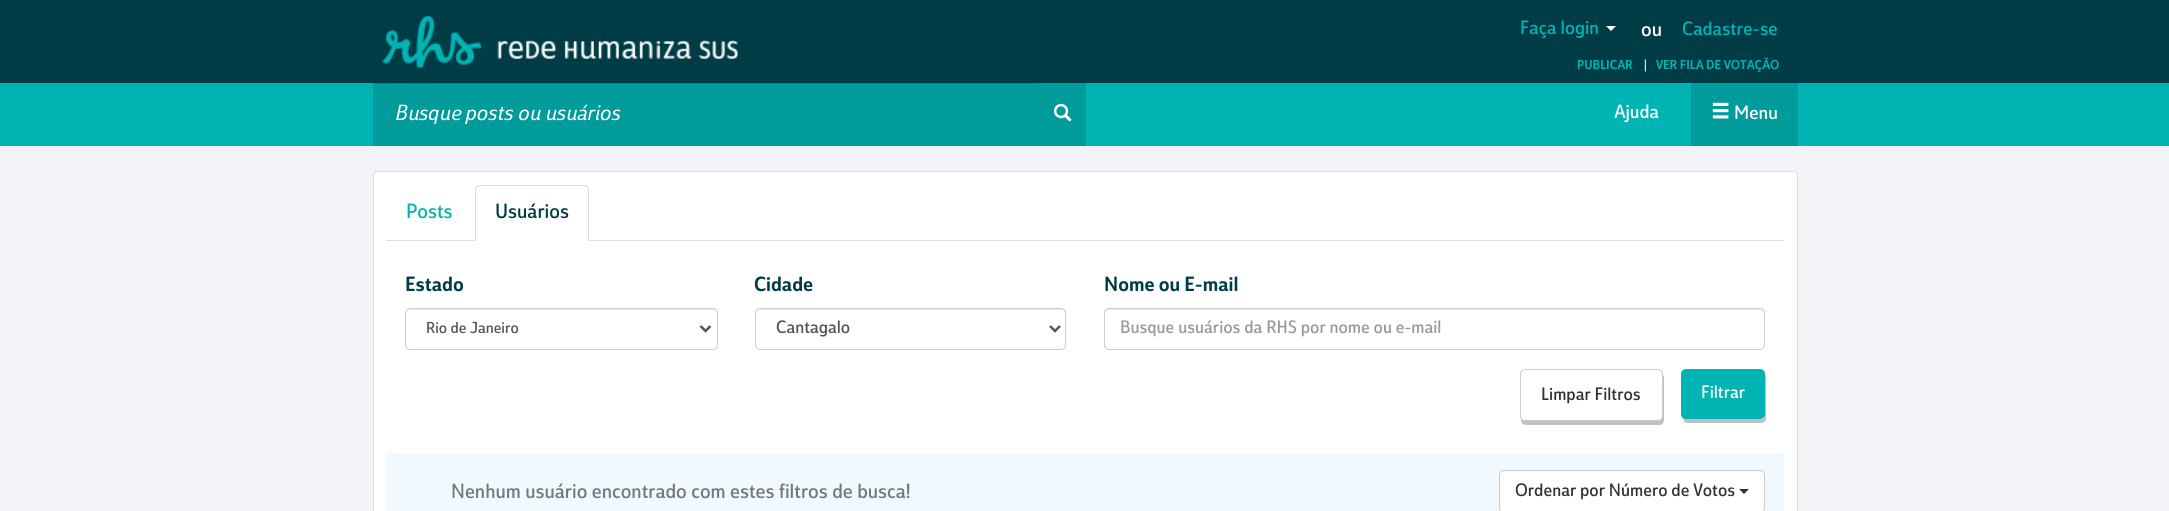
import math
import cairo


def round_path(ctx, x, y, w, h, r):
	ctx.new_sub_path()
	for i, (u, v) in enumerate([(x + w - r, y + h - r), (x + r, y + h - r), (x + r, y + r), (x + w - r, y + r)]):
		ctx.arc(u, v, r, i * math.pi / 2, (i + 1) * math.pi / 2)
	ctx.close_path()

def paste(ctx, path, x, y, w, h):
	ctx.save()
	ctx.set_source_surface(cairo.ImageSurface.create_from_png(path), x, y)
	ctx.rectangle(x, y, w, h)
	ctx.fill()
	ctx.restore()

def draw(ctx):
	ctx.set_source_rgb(0.949, 0.953, 0.961)
	ctx.paint()
	ctx.set_source_rgb(0, 0.235, 0.275)
	ctx.rectangle(0, 0, 2169, 83)
	ctx.fill()
	paste(ctx, 'media/1.png', 382, 16, 356, 52)
	ctx.select_font_face('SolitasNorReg')
	ctx.set_font_size(18.75)
	ctx.set_source_rgb(0, 0.706, 0.706)
	ctx.move_to(1520, 34)
	ctx.show_text('Faça login')
	ctx.set_source_rgb(1, 1, 1)
	ctx.new_path()
	ctx.move_to(1606, 26)
	ctx.line_to(1616, 26)
	ctx.line_to(1611, 31)
	ctx.close_path()
	ctx.fill()
	ctx.set_font_size(20)
	ctx.move_to(1641, 36)
	ctx.show_text('ou')
	ctx.set_font_size(18.75)
	ctx.set_source_rgb(0, 0.706, 0.706)
	ctx.move_to(1682, 35)
	ctx.show_text('Cadastre-se')
	ctx.select_font_face('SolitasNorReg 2')
	ctx.set_font_size(12.5)
	ctx.move_to(1577, 69)
	ctx.show_text('PUBLICAR')
	ctx.select_font_face('SolitasNorReg')
	ctx.set_source_rgb(1, 1, 1)
	ctx.move_to(1644, 69)
	ctx.show_text('|')
	ctx.select_font_face('SolitasNorReg 2')
	ctx.set_source_rgb(0, 0.706, 0.706)
	ctx.move_to(1656, 69)
	ctx.show_text('VER FILA DE VOTAÇÃO')
	ctx.rectangle(0, 83, 2169, 63)
	ctx.fill()
	ctx.set_source_rgb(0, 0.608, 0.608)
	ctx.rectangle(373, 84, 666, 62)
	ctx.fill()
	ctx.set_source_rgb(0, 0.561, 0.561)
	ctx.rectangle(373, 83, 667, 1)
	ctx.fill()
	ctx.select_font_face('SolitasNorReg', cairo.FONT_SLANT_ITALIC)
	ctx.set_font_size(21.25)
	ctx.set_source_rgb(1, 1, 1)
	ctx.move_to(395, 120)
	ctx.show_text('Busque posts ou usuários')
	ctx.set_source_rgb(0, 0.608, 0.608)
	ctx.rectangle(1039, 83, 47, 63)
	ctx.fill()
	paste(ctx, 'media/2.png', 1053, 103, 19, 19)
	ctx.select_font_face('SolitasNorReg')
	ctx.set_font_size(18.75)
	ctx.set_source_rgb(1, 1, 1)
	ctx.move_to(1614, 118)
	ctx.show_text('Ajuda')
	ctx.set_source_rgb(0, 0.608, 0.608)
	ctx.rectangle(1691, 83, 107, 63)
	ctx.fill()
	paste(ctx, 'media/3.png', 1712, 102, 17, 17)
	ctx.set_source_rgb(1, 1, 1)
	ctx.move_to(1734, 119)
	ctx.show_text('Menu')
	round_path(ctx, 373.5, 171.5, 1424, 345, 4.5)
	ctx.fill_preserve()
	ctx.set_source_rgb(0.867, 0.867, 0.867)
	ctx.set_line_width(1)
	ctx.stroke()
	ctx.rectangle(386, 240, 1398, 1)
	ctx.fill()
	ctx.set_font_size(20)
	ctx.set_source_rgb(0, 0.706, 0.706)
	ctx.move_to(406, 218)
	ctx.show_text('Posts')
	ctx.set_source_rgb(1, 1, 1)
	ctx.new_path()
	ctx.move_to(480, 185)
	ctx.line_to(584, 185)
	ctx.curve_to(587, 185, 589, 187, 589, 190)
	ctx.line_to(589, 241)
	ctx.line_to(475, 241)
	ctx.line_to(475, 190)
	ctx.curve_to(475, 187, 477, 185, 480, 185)
	ctx.close_path()
	ctx.fill()
	ctx.set_source_rgb(0.867, 0.867, 0.867)
	ctx.new_path()
	ctx.move_to(480, 185)
	ctx.curve_to(478, 185, 477, 186, 476, 186)
	ctx.line_to(477, 187)
	ctx.line_to(480, 186)
	ctx.line_to(584, 186)
	ctx.line_to(587, 187)
	ctx.line_to(587, 186)
	ctx.curve_to(587, 185, 585, 185, 584, 185)
	ctx.close_path()
	ctx.fill()
	ctx.new_path()
	ctx.move_to(589, 241)
	ctx.line_to(588, 240)
	ctx.line_to(588, 189)
	ctx.line_to(587, 187)
	ctx.line_to(587, 186)
	ctx.line_to(589, 188)
	ctx.close_path()
	ctx.fill()
	ctx.new_path()
	ctx.move_to(475, 190)
	ctx.line_to(475, 241)
	ctx.line_to(476, 240)
	ctx.line_to(476, 190)
	ctx.line_to(477, 187)
	ctx.line_to(476, 186)
	ctx.curve_to(476, 187, 475, 188, 475, 190)
	ctx.close_path()
	ctx.fill()
	ctx.set_source_rgb(0, 0.235, 0.275)
	ctx.move_to(495, 218)
	ctx.show_text('Usuários')
	ctx.select_font_face('SolitasNorReg 2')
	ctx.move_to(405, 291)
	ctx.show_text('Estado')
	ctx.set_source_rgb(0.925, 0.925, 0.925)
	ctx.new_path()
	ctx.move_to(410, 310)
	ctx.line_to(712, 310)
	ctx.curve_to(715, 310, 716, 312, 716, 314)
	ctx.curve_to(716, 311, 715, 309, 712, 309)
	ctx.line_to(410, 309)
	ctx.line_to(407, 310)
	ctx.curve_to(406, 311, 406, 313, 406, 314)
	ctx.curve_to(406, 312, 408, 310, 410, 310)
	ctx.close_path()
	ctx.fill()
	round_path(ctx, 405.5, 308.5, 312, 41, 4.5)
	ctx.set_source_rgb(0.8, 0.8, 0.8)
	ctx.stroke()
	ctx.new_path()
	ctx.move_to(700.5, 326)
	ctx.line_to(705.5, 331)
	ctx.line_to(710.5, 326)
	ctx.set_source_rgb(0.333, 0.333, 0.333)
	ctx.set_line_width(2.5)
	ctx.stroke()
	ctx.select_font_face('SolitasNorReg')
	ctx.set_font_size(15.5)
	ctx.move_to(426, 333)
	ctx.show_text('Rio de Janeiro')
	ctx.select_font_face('SolitasNorReg 2')
	ctx.set_font_size(20)
	ctx.set_source_rgb(0, 0.235, 0.275)
	ctx.move_to(754, 291)
	ctx.show_text('Cidade')
	ctx.set_source_rgb(0.925, 0.925, 0.925)
	ctx.new_path()
	ctx.move_to(760, 310)
	ctx.line_to(1061, 310)
	ctx.curve_to(1063, 310, 1065, 312, 1065, 314)
	ctx.curve_to(1065, 311, 1064, 309, 1061, 309)
	ctx.line_to(760, 309)
	ctx.line_to(757, 310)
	ctx.curve_to(756, 311, 756, 313, 756, 314)
	ctx.curve_to(756, 312, 758, 310, 760, 310)
	ctx.close_path()
	ctx.fill()
	round_path(ctx, 755.5, 308.5, 310, 41, 4.5)
	ctx.set_source_rgb(0.8, 0.8, 0.8)
	ctx.set_line_width(1)
	ctx.stroke()
	ctx.new_path()
	ctx.move_to(1050, 326)
	ctx.line_to(1055, 331)
	ctx.line_to(1060, 326)
	ctx.set_source_rgb(0.333, 0.333, 0.333)
	ctx.set_line_width(2.5)
	ctx.stroke()
	ctx.select_font_face('SolitasNorReg')
	ctx.set_font_size(17.5)
	ctx.move_to(776, 333)
	ctx.show_text('Cantagalo')
	ctx.select_font_face('SolitasNorReg 2')
	ctx.set_font_size(20)
	ctx.set_source_rgb(0, 0.235, 0.275)
	ctx.move_to(1104, 291)
	ctx.show_text('Nome ou E-mail')
	ctx.set_source_rgb(0.925, 0.925, 0.925)
	ctx.new_path()
	ctx.move_to(1109, 310)
	ctx.line_to(1760, 310)
	ctx.curve_to(1762, 310, 1764, 312, 1764, 314)
	ctx.curve_to(1764, 311, 1763, 309, 1760, 309)
	ctx.line_to(1109, 309)
	ctx.line_to(1106, 310)
	ctx.line_to(1105, 311)
	ctx.line_to(1105, 314)
	ctx.curve_to(1105, 312, 1107, 310, 1109, 310)
	ctx.close_path()
	ctx.fill()
	round_path(ctx, 1104.5, 308.5, 660, 41, 4.5)
	ctx.set_source_rgb(0.8, 0.8, 0.8)
	ctx.set_line_width(1)
	ctx.stroke()
	ctx.select_font_face('SolitasNorReg')
	ctx.set_font_size(17.5)
	ctx.set_source_rgb(0.6, 0.6, 0.6)
	ctx.move_to(1120, 333)
	ctx.show_text('Busque usuários da RHS por nome ou e-mail')
	ctx.set_source_rgb(0.757, 0.757, 0.757)
	ctx.new_path()
	ctx.move_to(1521, 419)
	ctx.line_to(1521, 420)
	ctx.curve_to(1521, 423, 1523, 425, 1526, 425)
	ctx.line_to(1659, 425)
	ctx.curve_to(1662, 425, 1664, 423, 1664, 420)
	ctx.line_to(1664, 378)
	ctx.curve_to(1664, 377, 1663, 375, 1662, 374)
	ctx.line_to(1662, 416)
	ctx.curve_to(1662, 419, 1660, 421, 1658, 421)
	ctx.line_to(1525, 421)
	ctx.curve_to(1523, 421, 1522, 420, 1521, 419)
	ctx.close_path()
	ctx.fill()
	ctx.set_source_rgb(1, 1, 1)
	round_path(ctx, 1520.5, 369.5, 142, 51, 4.5)
	ctx.fill_preserve()
	ctx.set_source_rgb(0.8, 0.8, 0.8)
	ctx.stroke()
	ctx.set_source_rgb(0.2, 0.2, 0.2)
	ctx.move_to(1541, 400)
	ctx.show_text('Limpar Filtros')
	ctx.set_source_rgb(0.757, 0.757, 0.757)
	ctx.new_path()
	ctx.move_to(1683, 418)
	ctx.curve_to(1683, 421, 1685, 423, 1688, 423)
	ctx.line_to(1761, 423)
	ctx.curve_to(1764, 423, 1766, 421, 1766, 418)
	ctx.line_to(1766, 378)
	ctx.curve_to(1766, 377, 1766, 376, 1765, 375)
	ctx.line_to(1765, 414)
	ctx.curve_to(1765, 417, 1763, 419, 1760, 419)
	ctx.line_to(1686, 419)
	ctx.curve_to(1685, 419, 1684, 418, 1683, 418)
	ctx.close_path()
	ctx.fill()
	ctx.set_source_rgb(0, 0.706, 0.706)
	round_path(ctx, 1681, 369, 84, 50, 5)
	ctx.fill()
	ctx.set_source_rgb(1, 1, 1)
	ctx.move_to(1701, 398)
	ctx.show_text('Filtrar')
	ctx.set_source_rgb(0.941, 0.973, 1)
	ctx.rectangle(386, 453, 1398, 58)
	ctx.fill()
	ctx.set_font_size(20)
	ctx.set_source_rgb(0.471, 0.471, 0.471)
	ctx.move_to(451, 498)
	ctx.show_text('Nenhum usuário encontrado com estes filtros de busca!')
	ctx.set_source_rgb(1, 1, 1)
	round_path(ctx, 1499.5, 470.5, 265, 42, 4.5)
	ctx.fill_preserve()
	ctx.set_source_rgb(0.8, 0.8, 0.8)
	ctx.stroke()
	ctx.set_font_size(17.5)
	ctx.set_source_rgb(0.2, 0.2, 0.2)
	ctx.move_to(1515, 496)
	ctx.show_text('Ordenar por Número de Votos')
	ctx.new_path()
	ctx.move_to(1739, 489)
	ctx.line_to(1749, 489)
	ctx.line_to(1744, 494)
	ctx.close_path()
	ctx.fill()


surface = cairo.ImageSurface(cairo.FORMAT_RGB24, 2169, 511)
ctx = cairo.Context(surface)
options = cairo.FontOptions()
options.set_hint_metrics(cairo.HINT_METRICS_OFF)
options.set_hint_style(cairo.HINT_STYLE_NONE)
ctx.set_font_options(options)
ctx.set_miter_limit(4)
draw(ctx)
surface.write_to_png('image.png')
